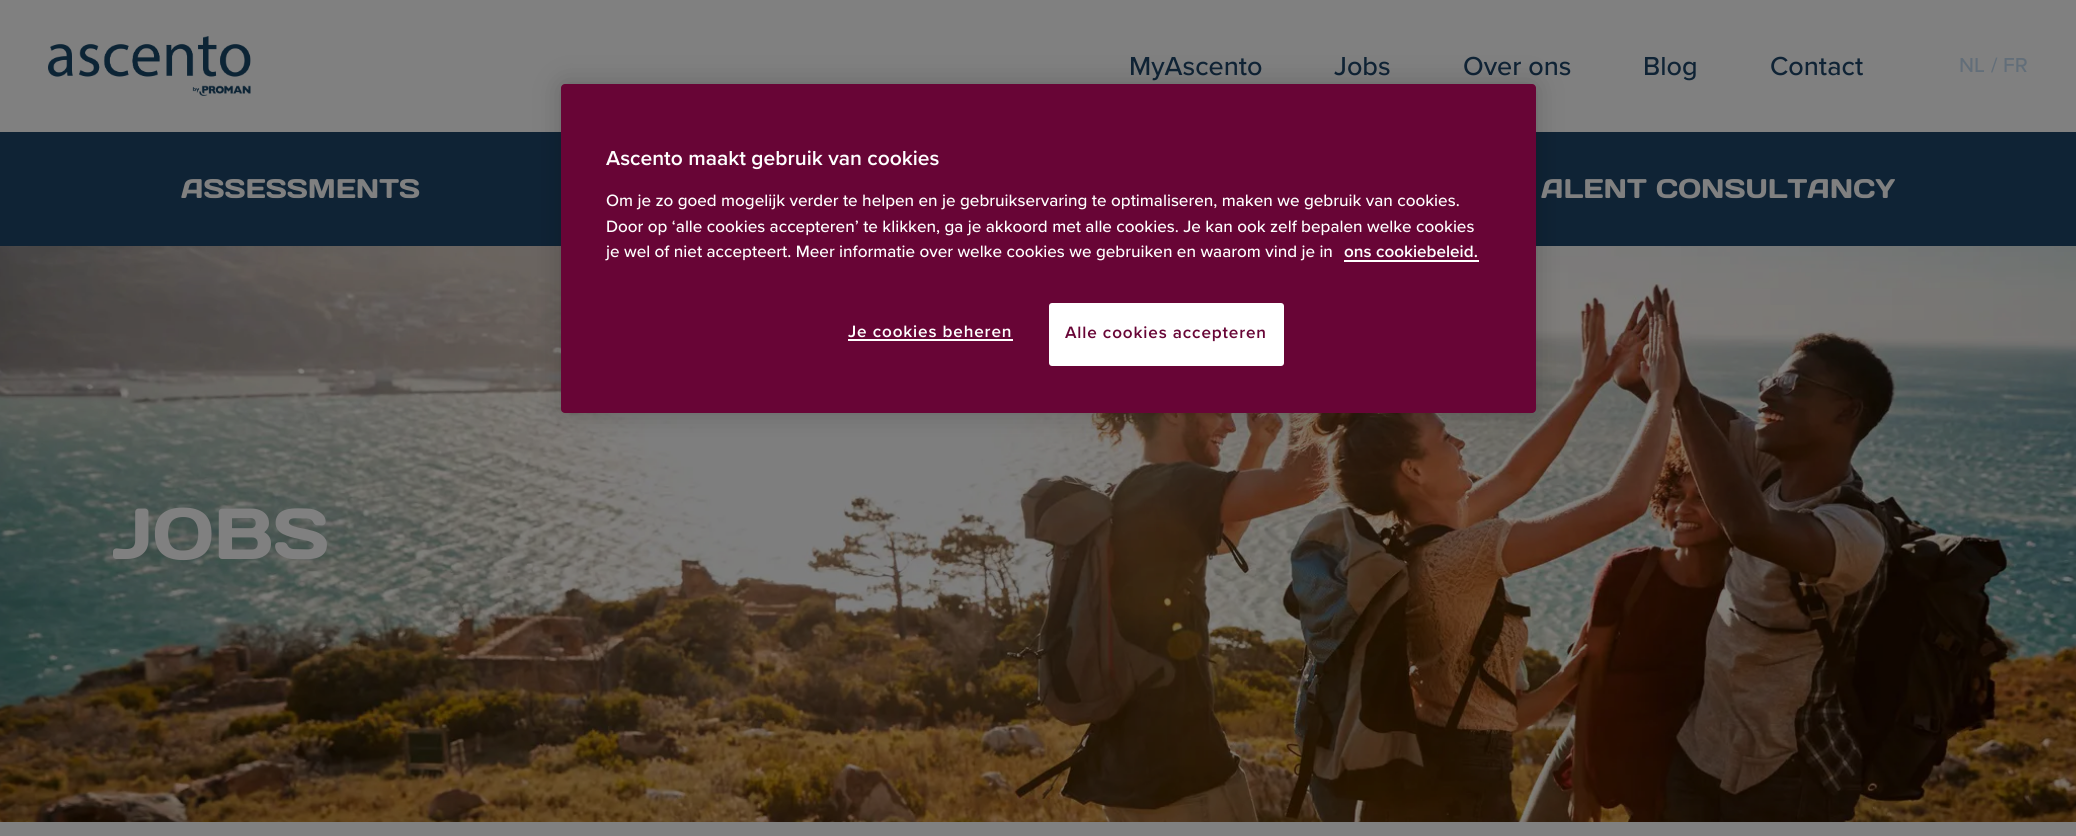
import math
import cairo


def write_spaced(ctx, x, y, s, letter, word):
	ctx.move_to(x, y)
	for ch in s:
		ctx.show_text(ch)
		ctx.rel_move_to(letter + word * (ch == ' '), 0)

def round_path(ctx, x, y, w, h, r):
	ctx.new_sub_path()
	for i, (u, v) in enumerate([(x + w - r, y + h - r), (x + r, y + h - r), (x + r, y + r), (x + w - r, y + r)]):
		ctx.arc(u, v, r, i * math.pi / 2, (i + 1) * math.pi / 2)
	ctx.close_path()

def blur_box(ctx, x, y, w, h, r, blur, alpha):
	ctx.push_group_with_content(cairo.CONTENT_ALPHA)
	ctx.set_operator(cairo.OPERATOR_SOURCE)
	for i in range(15, -16, -2):
		e = blur * i / 6
		if min(w, h) + 2 * e > 0:
			ctx.set_source_rgba(0, 0, 0, alpha * math.erfc((i - 1) / 8.5) / 2)
			round_path(ctx, x - e, y - e, w + 2 * e, h + 2 * e, max(0, min(r + e + blur * .6, min(w, h) / 2 + e)))
			ctx.fill()
	ctx.mask(ctx.pop_group())

def paste(ctx, path, x, y, w, h):
	ctx.save()
	ctx.set_source_surface(cairo.ImageSurface.create_from_png(path), x, y)
	ctx.rectangle(x, y, w, h)
	ctx.fill()
	ctx.restore()

def draw(ctx):
	ctx.set_source_rgb(0.502, 0.502, 0.502)
	ctx.paint()
	paste(ctx, 'media/1.png', 48, 36, 203, 60)
	ctx.select_font_face('Proxima Nova Medium')
	ctx.set_font_size(27)
	ctx.set_source_rgb(0.059, 0.137, 0.208)
	for x, y, s in [
		(1129, 75, 'MyAscento'),
		(1334, 75, 'Jobs'),
		(1463, 75, 'Over ons'),
		(1643, 75, 'Blog'),
		(1770, 75, 'Contact'),
	]:
		ctx.move_to(x, y)
		ctx.show_text(s)
	ctx.set_font_size(21)
	ctx.set_source_rgb(0.384, 0.431, 0.475)
	for x, y, s in [
		(1959, 72, 'NL'),
		(1991, 72, '/'),
		(2003, 72, 'FR'),
	]:
		ctx.move_to(x, y)
		ctx.show_text(s)
	ctx.set_source_rgb(0.059, 0.137, 0.208)
	ctx.rectangle(0, 132, 2076, 114)
	ctx.fill()
	paste(ctx, 'media/2.png', 0, 246, 2076, 576)
	ctx.set_source_rgb(0, 0, 0)
	blur_box(ctx, 561, 84, 975, 329, 4, 13.5, 0.2)
	ctx.set_source_rgb(0.408, 0.02, 0.212)
	round_path(ctx, 561, 84, 975, 329, 4)
	ctx.fill()
	ctx.select_font_face('Proxima Nova SemiBold')
	ctx.set_source_rgb(1, 1, 1)
	ctx.move_to(606, 165)
	ctx.show_text('Ascento maakt gebruik van cookies')
	ctx.select_font_face('Proxima Nova Medium')
	ctx.set_font_size(17.07)
	for x, y, s in [
		(606, 206, 'Om je zo goed mogelijk verder te helpen en je gebruikservaring te optimaliseren, maken we gebruik van cookies.'),
		(606, 232, 'Door op ‘alle cookies accepteren’ te klikken, ga je akkoord met alle cookies. Je kan ook zelf bepalen welke cookies'),
		(606, 257, 'je wel of niet accepteert. Meer informatie over welke cookies we gebruiken en waarom vind je in'),
	]:
		ctx.move_to(x, y)
		ctx.show_text(s)
	ctx.select_font_face('Proxima Nova SemiBold')
	ctx.move_to(1344, 257)
	ctx.show_text('ons cookiebeleid.')
	ctx.rectangle(1344, 260, 135, 2)
	ctx.fill()
	write_spaced(ctx, 848, 337, 'Je cookies beheren', 0.85, 0)
	ctx.rectangle(848, 339, 165, 2)
	ctx.fill()
	round_path(ctx, 1050, 304, 233, 61, 2)
	ctx.fill_preserve()
	ctx.stroke()
	ctx.set_source_rgb(0.408, 0.02, 0.212)
	write_spaced(ctx, 1065, 338, 'Alle cookies accepteren', 0.85, 0)
	ctx.select_font_face('Days One')
	ctx.set_font_size(27)
	ctx.set_source_rgb(0.502, 0.502, 0.502)
	ctx.move_to(181, 198)
	ctx.show_text('ASSESSMENTS')
	ctx.move_to(1541, 198)
	ctx.show_text('ALENT CONSULTANCY')
	ctx.set_font_size(72)
	ctx.move_to(113, 559)
	ctx.show_text('JOBS')


surface = cairo.ImageSurface(cairo.FORMAT_RGB24, 2076, 836)
ctx = cairo.Context(surface)
options = cairo.FontOptions()
options.set_hint_metrics(cairo.HINT_METRICS_OFF)
options.set_hint_style(cairo.HINT_STYLE_NONE)
ctx.set_font_options(options)
ctx.set_miter_limit(4)
draw(ctx)
surface.write_to_png('image.png')
